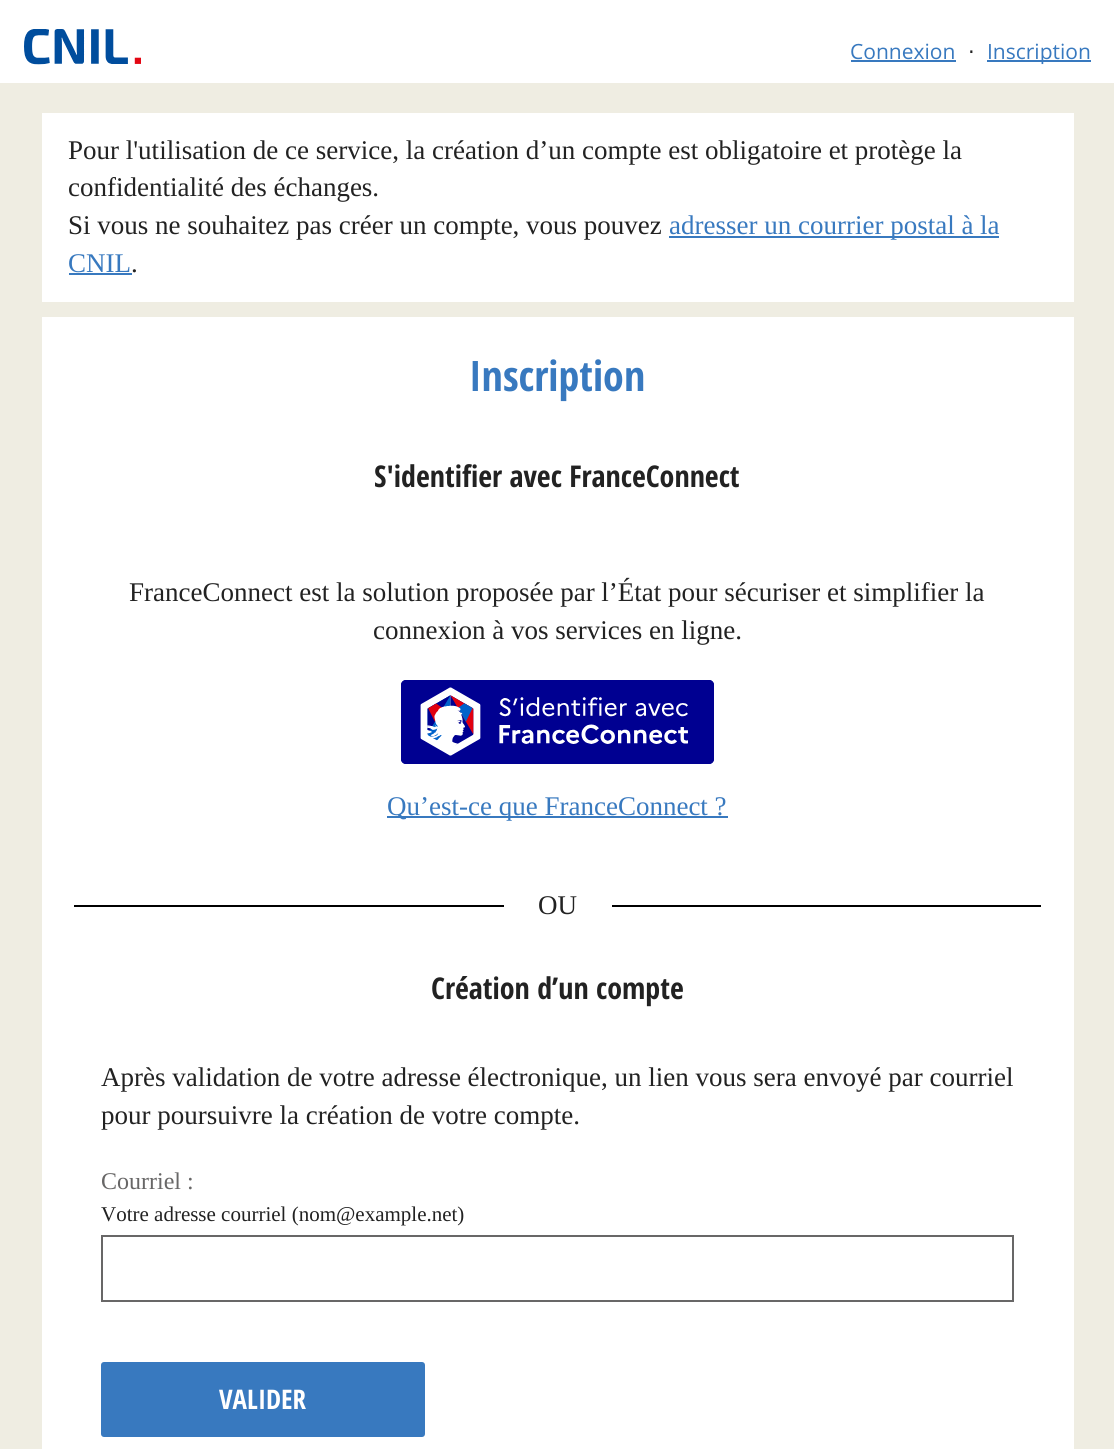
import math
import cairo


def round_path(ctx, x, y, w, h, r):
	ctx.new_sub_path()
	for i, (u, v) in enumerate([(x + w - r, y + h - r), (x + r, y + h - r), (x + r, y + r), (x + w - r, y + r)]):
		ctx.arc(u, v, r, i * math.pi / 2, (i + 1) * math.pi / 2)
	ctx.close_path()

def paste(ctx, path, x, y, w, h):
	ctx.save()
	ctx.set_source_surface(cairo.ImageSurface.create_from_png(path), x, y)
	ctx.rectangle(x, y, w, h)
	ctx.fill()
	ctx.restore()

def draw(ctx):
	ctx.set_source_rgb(0.937, 0.929, 0.886)
	ctx.paint()
	ctx.set_source_rgb(1, 1, 1)
	ctx.rectangle(0, 0, 1114, 83)
	ctx.fill()
	paste(ctx, 'media/1.png', 24, 29, 117, 36)
	ctx.select_font_face('Open Sans')
	ctx.set_font_size(21)
	ctx.set_source_rgb(0.22, 0.475, 0.749)
	ctx.move_to(850, 59)
	ctx.show_text('Connexion')
	ctx.rectangle(851, 60, 105, 2)
	ctx.fill()
	ctx.select_font_face('DejaVu Sans')
	ctx.set_source_rgb(0.133, 0.133, 0.133)
	ctx.move_to(968, 59)
	ctx.show_text('⋅')
	ctx.set_source_rgb(0.22, 0.475, 0.749)
	ctx.rectangle(987, 60, 104, 2)
	ctx.fill()
	ctx.select_font_face('Open Sans')
	ctx.move_to(987, 59)
	ctx.show_text('Inscription')
	ctx.set_source_rgb(1, 1, 1)
	ctx.rectangle(42, 113, 1032, 189)
	ctx.fill()
	ctx.select_font_face('Liberation Serif')
	ctx.set_font_size(27)
	ctx.set_source_rgb(0.133, 0.133, 0.133)
	for x, y, s in [
		(68, 159, 'Pour l\'utilisation de ce service, la création d’un compte est obligatoire et protège la'),
		(68, 196, 'confidentialité des échanges.'),
		(68, 234, 'Si vous ne souhaitez pas créer un compte, vous pouvez'),
	]:
		ctx.move_to(x, y)
		ctx.show_text(s)
	ctx.set_source_rgb(0.22, 0.475, 0.749)
	ctx.rectangle(669, 236, 330, 2)
	ctx.fill()
	ctx.move_to(669, 234)
	ctx.show_text('adresser un courrier postal à la')
	ctx.move_to(68, 272)
	ctx.show_text('CNIL')
	ctx.rectangle(69, 273, 63, 2)
	ctx.fill()
	ctx.set_source_rgb(0.133, 0.133, 0.133)
	ctx.move_to(131, 272)
	ctx.show_text('.')
	ctx.set_source_rgb(1, 1, 1)
	ctx.rectangle(42, 317, 1032, 1132)
	ctx.fill()
	ctx.select_font_face('Open Sans Condensed', cairo.FONT_SLANT_NORMAL, cairo.FONT_WEIGHT_BOLD)
	ctx.set_font_size(42)
	ctx.set_source_rgb(0.22, 0.475, 0.749)
	ctx.move_to(469, 391)
	ctx.show_text('Inscription')
	ctx.set_font_size(30)
	ctx.set_source_rgb(0.133, 0.133, 0.133)
	ctx.move_to(374, 487)
	ctx.show_text('S\'identifier avec FranceConnect')
	ctx.select_font_face('Liberation Serif')
	ctx.set_font_size(27)
	ctx.move_to(129, 601)
	ctx.show_text('FranceConnect est la solution proposée par l’État pour sécuriser et simplifier la')
	ctx.move_to(373, 639)
	ctx.show_text('connexion à vos services en ligne.')
	ctx.set_source_rgb(0, 0, 0.569)
	round_path(ctx, 401, 680, 313, 84, 5)
	ctx.fill()
	paste(ctx, 'media/2.png', 420, 687, 268, 69)
	round_path(ctx, 402, 681, 311, 82, 4)
	ctx.stroke()
	ctx.set_source_rgb(0.22, 0.475, 0.749)
	ctx.rectangle(387, 816, 341, 2)
	ctx.fill()
	ctx.move_to(387, 815)
	ctx.show_text('Qu’est-ce que FranceConnect ?')
	ctx.set_source_rgb(0, 0, 0)
	ctx.rectangle(74, 905, 430, 2)
	ctx.fill()
	ctx.rectangle(612, 905, 429, 2)
	ctx.fill()
	ctx.set_source_rgb(0.133, 0.133, 0.133)
	ctx.move_to(538, 914)
	ctx.show_text('OU')
	ctx.select_font_face('Open Sans Condensed', cairo.FONT_SLANT_NORMAL, cairo.FONT_WEIGHT_BOLD)
	ctx.set_font_size(30)
	ctx.move_to(431, 999)
	ctx.show_text('Création d’un compte')
	ctx.select_font_face('Liberation Serif')
	ctx.set_font_size(27)
	ctx.move_to(101, 1086)
	ctx.show_text('Après validation de votre adresse électronique, un lien vous sera envoyé par courriel')
	ctx.move_to(101, 1124)
	ctx.show_text('pour poursuivre la création de votre compte.')
	ctx.set_font_size(24)
	ctx.set_source_rgb(0.408, 0.404, 0.404)
	ctx.move_to(101, 1189)
	ctx.show_text('Courriel :')
	ctx.set_font_size(21)
	ctx.set_source_rgb(0.133, 0.133, 0.133)
	ctx.move_to(101, 1221)
	ctx.show_text('Votre adresse courriel (nom@example.net)')
	ctx.rectangle(102, 1236, 911, 65)
	ctx.set_source_rgb(0.408, 0.404, 0.404)
	ctx.stroke()
	ctx.set_source_rgb(0.22, 0.475, 0.749)
	round_path(ctx, 102, 1363, 322, 73, 2)
	ctx.fill_preserve()
	ctx.stroke()
	ctx.select_font_face('Open Sans Condensed', cairo.FONT_SLANT_NORMAL, cairo.FONT_WEIGHT_BOLD)
	ctx.set_font_size(27)
	ctx.set_source_rgb(1, 1, 1)
	ctx.move_to(219, 1409)
	ctx.show_text('VALIDER')


surface = cairo.ImageSurface(cairo.FORMAT_RGB24, 1114, 1449)
ctx = cairo.Context(surface)
options = cairo.FontOptions()
options.set_hint_metrics(cairo.HINT_METRICS_OFF)
options.set_hint_style(cairo.HINT_STYLE_NONE)
ctx.set_font_options(options)
ctx.set_miter_limit(4)
draw(ctx)
surface.write_to_png('image.png')
